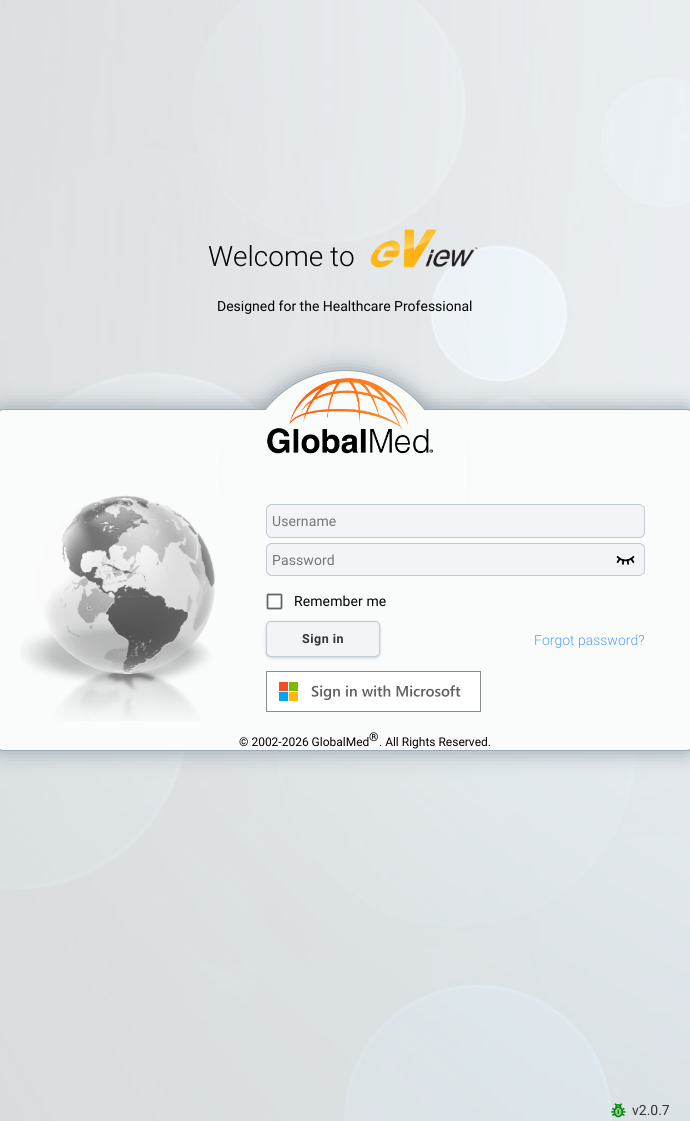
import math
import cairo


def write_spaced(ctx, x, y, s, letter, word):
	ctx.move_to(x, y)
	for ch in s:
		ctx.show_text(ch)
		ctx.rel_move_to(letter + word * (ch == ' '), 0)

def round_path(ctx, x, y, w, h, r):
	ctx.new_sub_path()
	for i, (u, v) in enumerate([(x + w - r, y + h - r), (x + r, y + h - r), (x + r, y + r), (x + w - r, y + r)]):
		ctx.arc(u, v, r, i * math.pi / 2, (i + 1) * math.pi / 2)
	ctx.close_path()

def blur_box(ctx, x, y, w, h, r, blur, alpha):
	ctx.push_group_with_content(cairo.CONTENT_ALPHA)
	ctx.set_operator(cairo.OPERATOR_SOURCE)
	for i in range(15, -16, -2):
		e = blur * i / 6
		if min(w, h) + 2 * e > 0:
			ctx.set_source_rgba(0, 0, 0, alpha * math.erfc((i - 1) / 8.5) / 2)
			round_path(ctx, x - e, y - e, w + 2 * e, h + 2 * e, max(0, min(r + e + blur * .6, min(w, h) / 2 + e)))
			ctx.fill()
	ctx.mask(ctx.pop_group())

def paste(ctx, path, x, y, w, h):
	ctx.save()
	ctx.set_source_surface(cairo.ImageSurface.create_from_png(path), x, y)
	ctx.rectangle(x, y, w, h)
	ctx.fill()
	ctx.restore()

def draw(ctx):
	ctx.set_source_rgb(1, 1, 1)
	ctx.paint()
	paste(ctx, 'media/1.png', 0, 0, 690, 1121)
	ctx.select_font_face('Roboto Light')
	ctx.set_font_size(28)
	ctx.set_source_rgb(0, 0, 0)
	ctx.move_to(208, 266)
	ctx.show_text('Welcome to')
	paste(ctx, 'media/2.png', 370, 229, 108, 39)
	ctx.select_font_face('Roboto')
	ctx.set_font_size(14)
	ctx.move_to(217, 311)
	ctx.show_text('Designed for the Healthcare Professional')
	ctx.set_source_rgb(0.62, 0.667, 0.69)
	blur_box(ctx, -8, 407, 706, 346, 12, 10, 1)
	ctx.set_source_rgb(0.98, 0.984, 0.984)
	round_path(ctx, -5.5, 409.5, 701, 341, 9.5)
	ctx.fill_preserve()
	ctx.set_source_rgb(0.62, 0.667, 0.69)
	ctx.set_line_width(1)
	ctx.stroke()
	ctx.set_source_rgb(0.62, 0.667, 0.69)
	blur_box(ctx, 242, 368, 206, 206, 103, 10, 1)
	ctx.set_source_rgb(0.98, 0.984, 0.984)
	ctx.arc(345, 471, 100.5, 0, 2 * math.pi)
	ctx.fill_preserve()
	ctx.set_source_rgb(0.62, 0.667, 0.69)
	ctx.stroke()
	ctx.set_source_rgb(0.98, 0.984, 0.984)
	ctx.rectangle(223, 410, 244, 183)
	ctx.fill()
	paste(ctx, 'media/3.png', 267, 378, 166, 76)
	paste(ctx, 'media/4.png', 20, 495, 195, 226)
	ctx.set_source_rgb(0.949, 0.957, 0.965)
	round_path(ctx, 266.5, 504.5, 378, 33, 5.5)
	ctx.fill_preserve()
	ctx.set_source_rgb(0.749, 0.792, 0.82)
	ctx.stroke()
	ctx.set_source_rgb(0.459, 0.459, 0.459)
	write_spaced(ctx, 272, 526, 'Username', 0.1, 0)
	ctx.set_source_rgb(0.949, 0.957, 0.965)
	round_path(ctx, 266.5, 543.5, 378, 32, 5.5)
	ctx.fill_preserve()
	ctx.set_source_rgb(0.749, 0.792, 0.82)
	ctx.stroke()
	ctx.set_source_rgb(0.459, 0.459, 0.459)
	write_spaced(ctx, 272, 565, 'Password', 0.1, 0)
	paste(ctx, 'media/5.png', 616, 556, 19, 9)
	paste(ctx, 'media/6.png', 266, 593, 17, 17)
	ctx.set_source_rgb(0, 0, 0)
	write_spaced(ctx, 294, 606, 'Remember me', 0.1, 0)
	ctx.set_source_rgb(0.62, 0.667, 0.69)
	blur_box(ctx, 266, 622, 114, 36, 5, 1.5, 0.5)
	ctx.set_source_rgb(0.949, 0.957, 0.965)
	round_path(ctx, 266.5, 621.5, 113, 35, 4.5)
	ctx.fill_preserve()
	ctx.set_source_rgb(0.749, 0.792, 0.82)
	ctx.stroke()
	ctx.select_font_face('Roboto', cairo.FONT_SLANT_NORMAL, cairo.FONT_WEIGHT_BOLD)
	ctx.set_font_size(12.5)
	ctx.set_source_rgb(0.2, 0.2, 0.2)
	write_spaced(ctx, 302, 643, 'Sign in', 0.5, 0)
	ctx.select_font_face('Roboto Light')
	ctx.set_font_size(14)
	ctx.set_source_rgb(0.318, 0.616, 1)
	ctx.move_to(534, 645)
	ctx.show_text('Forgot password?')
	paste(ctx, 'media/7.png', 266, 671, 215, 41)
	ctx.select_font_face('Roboto')
	ctx.set_font_size(12)
	ctx.set_source_rgb(0, 0, 0)
	for x, y, s in [
		(239, 746, '© 2002-2026 GlobalMed'),
		(369, 741, '®'),
		(379, 746, '. All Rights Reserved.'),
	]:
		ctx.move_to(x, y)
		ctx.show_text(s)
	paste(ctx, 'media/8.png', 611, 1103, 15, 15)
	ctx.set_font_size(14)
	ctx.set_source_rgb(0.2, 0.2, 0.2)
	ctx.move_to(632, 1115)
	ctx.show_text('v2.0.7')


surface = cairo.ImageSurface(cairo.FORMAT_RGB24, 690, 1121)
ctx = cairo.Context(surface)
options = cairo.FontOptions()
options.set_hint_metrics(cairo.HINT_METRICS_OFF)
options.set_hint_style(cairo.HINT_STYLE_NONE)
ctx.set_font_options(options)
ctx.set_miter_limit(4)
draw(ctx)
surface.write_to_png('image.png')
